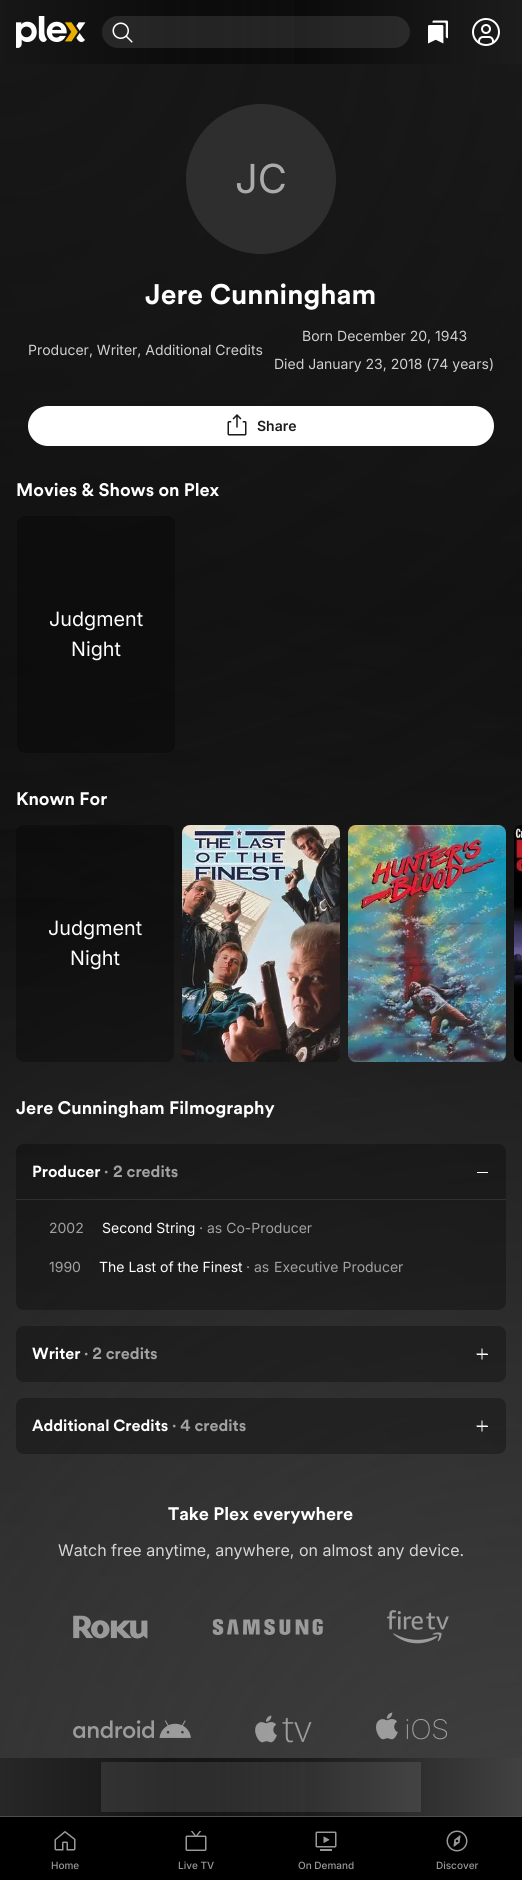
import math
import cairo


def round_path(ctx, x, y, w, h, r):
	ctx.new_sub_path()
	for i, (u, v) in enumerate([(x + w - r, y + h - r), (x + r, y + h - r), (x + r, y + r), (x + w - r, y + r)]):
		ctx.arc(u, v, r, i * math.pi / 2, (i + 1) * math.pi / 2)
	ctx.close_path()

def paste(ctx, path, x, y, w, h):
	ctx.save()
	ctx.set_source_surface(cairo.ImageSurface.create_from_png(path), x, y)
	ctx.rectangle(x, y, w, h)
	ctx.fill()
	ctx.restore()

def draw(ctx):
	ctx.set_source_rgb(1, 1, 1)
	ctx.paint()
	gradient = cairo.LinearGradient(0, 32, 522, 32)
	gradient.add_color_stop_rgba(0.3, 0, 0, 0, 1)
	gradient.add_color_stop_rgba(1, 0.11, 0.11, 0.11, 1)
	ctx.set_source(gradient)
	ctx.rectangle(2, 0, 520, 64)
	ctx.fill()
	gradient = cairo.LinearGradient(0, 32, 522, 32)
	gradient.add_color_stop_rgba(0, 0.09, 0.09, 0.09, 1)
	gradient.add_color_stop_rgba(0.7, 0.09, 0.09, 0.09, 0)
	ctx.set_source(gradient)
	ctx.rectangle(0, 0, 294, 64)
	ctx.fill()
	paste(ctx, 'media/1.png', 16, 16, 70, 32)
	ctx.set_source_rgba(1, 1, 1, 0.1)
	round_path(ctx, 102, 16, 308, 32, 16)
	ctx.fill()
	paste(ctx, 'media/2.png', 112, 22, 21, 21)
	paste(ctx, 'media/3.png', 428, 20, 20, 24)
	paste(ctx, 'media/4.png', 472, 18, 28, 28)
	gradient = cairo.RadialGradient(0, 1880, 0, 0, 1880, 1880)
	gradient.add_color_stop_rgba(0, 0.153, 0.153, 0.153, 1)
	gradient.add_color_stop_rgba(0.7, 0, 0, 0, 1)
	ctx.set_source(gradient)
	ctx.rectangle(0, 64, 522, 1694)
	ctx.fill()
	gradient = cairo.RadialGradient(522, 1880, 0, 522, 1880, 1880)
	gradient.add_color_stop_rgba(0, 0.255, 0.255, 0.255, 1)
	gradient.add_color_stop_rgba(0.7, 0.255, 0.255, 0.255, 0)
	ctx.set_source(gradient)
	ctx.rectangle(0, 617, 522, 1141)
	ctx.fill()
	gradient = cairo.RadialGradient(522, 0, 0, 522, 0, 1880)
	gradient.add_color_stop_rgba(0, 0.11, 0.11, 0.11, 1)
	gradient.add_color_stop_rgba(0.7, 0.11, 0.11, 0.11, 0)
	ctx.set_source(gradient)
	ctx.rectangle(0, 64, 522, 834)
	ctx.fill()
	gradient = cairo.RadialGradient(0, 0, 0, 0, 0, 1880)
	gradient.add_color_stop_rgba(0, 0.09, 0.09, 0.09, 1)
	gradient.add_color_stop_rgba(0.7, 0.09, 0.09, 0.09, 0)
	ctx.set_source(gradient)
	ctx.rectangle(0, 64, 522, 765)
	ctx.fill()
	ctx.set_source_rgb(0.18, 0.18, 0.18)
	ctx.arc(261, 179, 75, 0, 2 * math.pi)
	ctx.fill()
	ctx.select_font_face('Inter')
	ctx.set_font_size(40)
	ctx.set_source_rgb(0.671, 0.671, 0.671)
	ctx.move_to(235, 193)
	ctx.show_text('JC')
	ctx.select_font_face('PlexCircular', cairo.FONT_SLANT_NORMAL, cairo.FONT_WEIGHT_BOLD)
	ctx.set_font_size(28)
	ctx.set_source_rgb(1, 1, 1)
	ctx.move_to(145, 304)
	ctx.show_text('Jere Cunningham')
	ctx.select_font_face('Inter')
	ctx.set_font_size(14)
	ctx.set_source_rgb(0.816, 0.816, 0.816)
	for x, y, s in [
		(28, 355, 'Producer, Writer, Additional Credits'),
		(302, 341, 'Born December 20, 1943'),
		(274, 369, 'Died January 23, 2018 (74 years)'),
	]:
		ctx.move_to(x, y)
		ctx.show_text(s)
	ctx.set_source_rgb(1, 1, 1)
	round_path(ctx, 28, 406, 466, 40, 20)
	ctx.fill()
	paste(ctx, 'media/5.png', 227, 414, 20, 22)
	ctx.select_font_face('Inter SemiBold')
	ctx.set_source_rgb(0.11, 0.11, 0.11)
	ctx.move_to(257, 431)
	ctx.show_text('Share')
	ctx.select_font_face('PlexCircular', cairo.FONT_SLANT_NORMAL, cairo.FONT_WEIGHT_BOLD)
	ctx.set_font_size(18)
	ctx.set_source_rgb(1, 1, 1)
	ctx.move_to(16, 496)
	ctx.show_text('Movies & Shows on Plex')
	ctx.set_source_rgba(0, 0, 0, 0.3)
	round_path(ctx, 17, 516, 158, 237, 8)
	ctx.fill()
	ctx.select_font_face('Inter')
	ctx.set_font_size(19.75)
	ctx.set_source_rgb(1, 1, 1)
	ctx.move_to(49, 626)
	ctx.show_text('Judgment')
	ctx.move_to(71, 656)
	ctx.show_text('Night')
	ctx.select_font_face('PlexCircular', cairo.FONT_SLANT_NORMAL, cairo.FONT_WEIGHT_BOLD)
	ctx.set_font_size(18)
	ctx.move_to(16, 805)
	ctx.show_text('Known For')
	ctx.set_source_rgba(0, 0, 0, 0.3)
	round_path(ctx, 16, 825, 158, 237, 8)
	ctx.fill()
	ctx.select_font_face('Inter')
	ctx.set_font_size(19.75)
	ctx.set_source_rgb(1, 1, 1)
	ctx.move_to(48, 935)
	ctx.show_text('Judgment')
	ctx.move_to(70, 965)
	ctx.show_text('Night')
	ctx.set_source_rgba(0, 0, 0, 0.3)
	round_path(ctx, 182, 825, 158, 237, 8)
	ctx.fill()
	paste(ctx, 'media/6.png', 182, 825, 158, 237)
	round_path(ctx, 348, 825, 158, 237, 8)
	ctx.fill()
	paste(ctx, 'media/7.png', 348, 825, 158, 237)
	ctx.new_path()
	ctx.move_to(522, 825)
	ctx.line_to(522, 1062)
	ctx.curve_to(517.5, 1062, 514, 1058.5, 514, 1054)
	ctx.line_to(514, 833)
	ctx.curve_to(514, 828.5, 517.5, 825, 522, 825)
	ctx.close_path()
	ctx.fill()
	paste(ctx, 'media/8.png', 514, 825, 8, 237)
	ctx.select_font_face('PlexCircular', cairo.FONT_SLANT_NORMAL, cairo.FONT_WEIGHT_BOLD)
	ctx.set_font_size(18)
	ctx.set_source_rgb(1, 1, 1)
	ctx.move_to(16, 1114)
	ctx.show_text('Jere Cunningham Filmography')
	ctx.set_source_rgba(0, 0, 0, 0.3)
	round_path(ctx, 16, 1144, 490, 166, 8)
	ctx.fill()
	ctx.set_source_rgba(1, 1, 1, 0.1)
	ctx.rectangle(16, 1199, 490, 1)
	ctx.fill()
	ctx.set_font_size(16)
	ctx.set_source_rgb(1, 1, 1)
	ctx.move_to(32, 1177)
	ctx.show_text('Producer')
	ctx.set_source_rgb(0.635, 0.635, 0.635)
	ctx.move_to(104, 1177)
	ctx.show_text('·')
	ctx.move_to(113, 1177)
	ctx.show_text('2 credits')
	ctx.set_source_rgb(1, 1, 1)
	ctx.rectangle(477, 1172, 11, 1)
	ctx.fill()
	ctx.select_font_face('Inter')
	ctx.set_font_size(14)
	ctx.set_source_rgb(0.635, 0.635, 0.635)
	ctx.move_to(49, 1233)
	ctx.show_text('2002')
	ctx.set_source_rgb(1, 1, 1)
	ctx.move_to(102, 1233)
	ctx.show_text('Second String')
	ctx.set_source_rgb(0.635, 0.635, 0.635)
	ctx.move_to(199, 1233)
	ctx.show_text('· as Co-Producer')
	ctx.move_to(49, 1272)
	ctx.show_text('1990')
	ctx.set_source_rgb(1, 1, 1)
	ctx.move_to(99, 1272)
	ctx.show_text('The Last of the Finest')
	ctx.set_source_rgb(0.635, 0.635, 0.635)
	ctx.move_to(246, 1272)
	ctx.show_text('· as')
	ctx.move_to(274, 1272)
	ctx.show_text('Executive Producer')
	ctx.set_source_rgba(0, 0, 0, 0.3)
	round_path(ctx, 16, 1326, 490, 56, 8)
	ctx.fill()
	ctx.select_font_face('PlexCircular', cairo.FONT_SLANT_NORMAL, cairo.FONT_WEIGHT_BOLD)
	ctx.set_font_size(16)
	ctx.set_source_rgb(1, 1, 1)
	ctx.move_to(32, 1359)
	ctx.show_text('Writer')
	ctx.set_source_rgb(0.635, 0.635, 0.635)
	ctx.move_to(84, 1359)
	ctx.show_text('· 2 credits')
	paste(ctx, 'media/9.png', 476, 1348, 12, 12)
	ctx.set_source_rgb(1, 1, 1)
	ctx.rectangle(477, 1354, 11, 1)
	ctx.fill()
	ctx.set_source_rgba(0, 0, 0, 0.3)
	round_path(ctx, 16, 1398, 490, 56, 8)
	ctx.fill()
	ctx.set_source_rgb(1, 1, 1)
	ctx.move_to(32, 1431)
	ctx.show_text('Additional Credits')
	ctx.set_source_rgb(0.635, 0.635, 0.635)
	ctx.move_to(172, 1431)
	ctx.show_text('· 4 credits')
	paste(ctx, 'media/10.png', 476, 1420, 12, 12)
	ctx.set_source_rgb(1, 1, 1)
	ctx.rectangle(477, 1426, 11, 1)
	ctx.fill()
	ctx.set_font_size(18)
	ctx.move_to(168, 1520)
	ctx.show_text('Take Plex everywhere')
	ctx.select_font_face('Inter')
	ctx.set_font_size(16)
	ctx.set_source_rgb(0.839, 0.839, 0.839)
	ctx.move_to(58, 1556)
	ctx.show_text('Watch free anytime, anywhere, on almost any device.')
	paste(ctx, 'media/11.png', 73, 1615, 75, 24)
	paste(ctx, 'media/12.png', 212, 1619, 111, 16)
	paste(ctx, 'media/13.png', 387, 1610, 62, 34)
	paste(ctx, 'media/14.png', 73, 1720, 118, 19)
	paste(ctx, 'media/15.png', 255, 1715, 57, 28)
	paste(ctx, 'media/16.png', 376, 1712, 72, 28)
	gradient = cairo.LinearGradient(0, 1787, 522, 1787)
	gradient.add_color_stop_rgba(0.3, 0, 0, 0, 1)
	gradient.add_color_stop_rgba(1, 0.255, 0.255, 0.255, 1)
	ctx.set_source(gradient)
	ctx.rectangle(2, 1758, 520, 58)
	ctx.fill()
	gradient = cairo.LinearGradient(0, 1787, 522, 1787)
	gradient.add_color_stop_rgba(0, 0.153, 0.153, 0.153, 1)
	gradient.add_color_stop_rgba(0.7, 0.153, 0.153, 0.153, 0)
	ctx.set_source(gradient)
	ctx.rectangle(0, 1758, 305, 58)
	ctx.fill()
	ctx.set_source_rgba(1, 1, 1, 0.1)
	ctx.rectangle(101, 1762, 320, 50)
	ctx.fill()
	ctx.set_source_rgb(0, 0, 0)
	ctx.rectangle(0, 1817, 522, 63)
	ctx.fill()
	ctx.set_source_rgb(0.302, 0.302, 0.302)
	ctx.rectangle(0, 1816, 522, 1)
	ctx.fill()
	paste(ctx, 'media/17.png', 54, 1831, 22, 20)
	ctx.select_font_face('Inter Medium')
	ctx.set_font_size(10)
	ctx.set_source_rgb(0.6, 0.6, 0.6)
	ctx.move_to(51, 1869)
	ctx.show_text('Home')
	paste(ctx, 'media/18.png', 185, 1831, 22, 20)
	ctx.move_to(178, 1869)
	ctx.show_text('Live TV')
	paste(ctx, 'media/19.png', 315, 1831, 22, 20)
	ctx.move_to(298, 1869)
	ctx.show_text('On Demand')
	paste(ctx, 'media/20.png', 446, 1830, 22, 22)
	ctx.move_to(436, 1869)
	ctx.show_text('Discover')


surface = cairo.ImageSurface(cairo.FORMAT_RGB24, 522, 1880)
ctx = cairo.Context(surface)
options = cairo.FontOptions()
options.set_hint_metrics(cairo.HINT_METRICS_OFF)
options.set_hint_style(cairo.HINT_STYLE_NONE)
ctx.set_font_options(options)
ctx.set_miter_limit(4)
draw(ctx)
surface.write_to_png('image.png')
